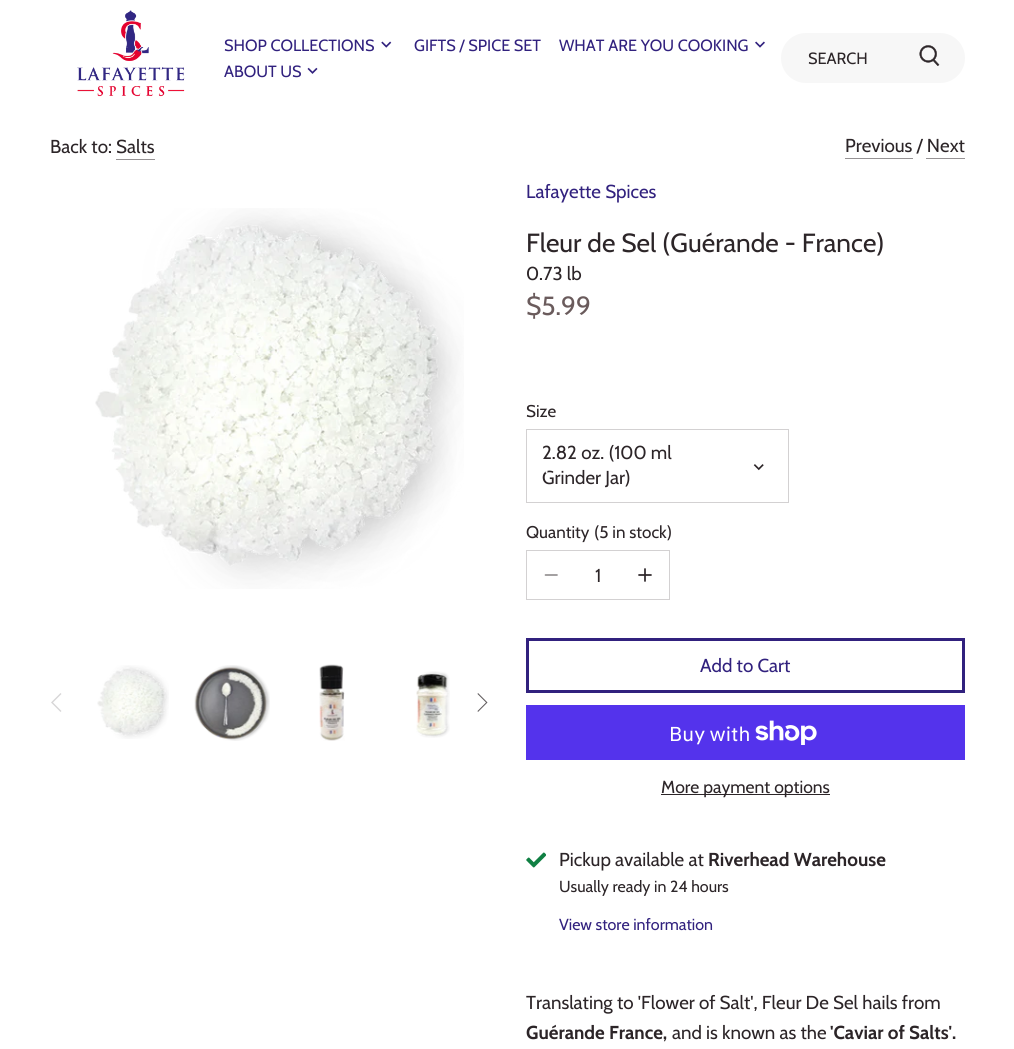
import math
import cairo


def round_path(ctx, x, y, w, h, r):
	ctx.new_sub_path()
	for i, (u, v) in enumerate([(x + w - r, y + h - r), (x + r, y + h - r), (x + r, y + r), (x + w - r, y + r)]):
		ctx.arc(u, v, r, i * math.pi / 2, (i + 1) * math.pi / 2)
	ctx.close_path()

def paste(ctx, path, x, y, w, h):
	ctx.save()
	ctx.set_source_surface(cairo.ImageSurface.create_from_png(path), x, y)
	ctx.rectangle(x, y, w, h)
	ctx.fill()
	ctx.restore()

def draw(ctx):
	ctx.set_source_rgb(1, 1, 1)
	ctx.paint()
	paste(ctx, 'media/1.png', 77, 10, 108, 87)
	ctx.select_font_face('Cabin')
	ctx.set_font_size(16.25)
	ctx.set_source_rgb(0.192, 0.129, 0.494)
	ctx.move_to(224, 51)
	ctx.show_text('SHOP COLLECTIONS')
	paste(ctx, 'media/2.png', 381, 41, 11, 7)
	ctx.move_to(414, 51)
	ctx.show_text('GIFTS / SPICE SET')
	ctx.move_to(559, 51)
	ctx.show_text('WHAT ARE YOU COOKING')
	paste(ctx, 'media/3.png', 755, 41, 10, 7)
	ctx.move_to(224, 77)
	ctx.show_text('ABOUT US')
	paste(ctx, 'media/4.png', 307, 67, 11, 7)
	ctx.set_source_rgb(0.965, 0.965, 0.965)
	round_path(ctx, 781, 33, 184, 50, 25)
	ctx.fill()
	ctx.set_source_rgb(0.173, 0.145, 0.157)
	ctx.move_to(808, 64)
	ctx.show_text('SEARCH')
	paste(ctx, 'media/5.png', 919, 45, 21, 21)
	ctx.set_font_size(18.75)
	ctx.move_to(50, 153)
	ctx.show_text('Back to: Salts')
	ctx.set_source_rgb(0.588, 0.573, 0.58)
	ctx.rectangle(116, 159, 39, 1)
	ctx.fill()
	ctx.set_source_rgb(0.173, 0.145, 0.157)
	ctx.move_to(845, 152)
	ctx.show_text('Previous / Next')
	ctx.set_source_rgb(0.588, 0.573, 0.58)
	ctx.rectangle(845, 158, 68, 1)
	ctx.fill()
	ctx.rectangle(926, 158, 39, 1)
	ctx.fill()
	paste(ctx, 'media/6.png', 95, 208, 369, 381)
	ctx.set_source_rgb(0.843, 0.839, 0.843)
	ctx.new_path()
	ctx.move_to(61.5, 694)
	ctx.line_to(60.5, 693)
	ctx.line_to(51, 702.5)
	ctx.line_to(60.5, 712)
	ctx.line_to(61.5, 711)
	ctx.line_to(53, 702.5)
	ctx.close_path()
	ctx.fill()
	paste(ctx, 'media/7.png', 97, 665, 72, 74)
	paste(ctx, 'media/8.png', 194, 665, 76, 76)
	paste(ctx, 'media/9.png', 319, 664, 26, 77)
	paste(ctx, 'media/10.png', 416, 671, 34, 67)
	ctx.set_source_rgb(0.38, 0.361, 0.369)
	ctx.new_path()
	ctx.move_to(478, 693)
	ctx.line_to(477.5, 694)
	ctx.line_to(486, 702.5)
	ctx.line_to(477.5, 711)
	ctx.line_to(478, 712)
	ctx.line_to(487.5, 702.5)
	ctx.close_path()
	ctx.fill()
	ctx.set_source_rgb(0.192, 0.129, 0.494)
	ctx.move_to(526, 198)
	ctx.show_text('Lafayette Spices')
	ctx.set_font_size(26.25)
	ctx.set_source_rgb(0.173, 0.145, 0.157)
	ctx.move_to(526, 252)
	ctx.show_text('Fleur de Sel (Guérande - France)')
	ctx.set_font_size(18.75)
	ctx.move_to(526, 280)
	ctx.show_text('0.73 lb')
	ctx.set_font_size(26.25)
	ctx.set_source_rgb(0.416, 0.357, 0.361)
	ctx.move_to(526, 315)
	ctx.show_text('$5.99')
	ctx.set_font_size(17)
	ctx.set_source_rgb(0.173, 0.145, 0.157)
	ctx.move_to(526, 417)
	ctx.show_text('Size')
	ctx.rectangle(526.5, 429.5, 262, 73)
	ctx.set_source_rgb(0.827, 0.82, 0.824)
	ctx.set_line_width(1)
	ctx.stroke()
	ctx.set_font_size(18.75)
	ctx.set_source_rgb(0.173, 0.145, 0.157)
	ctx.move_to(542, 459)
	ctx.show_text('2.82 oz. (100 ml')
	ctx.move_to(542, 484)
	ctx.show_text('Grinder Jar)')
	paste(ctx, 'media/11.png', 753, 464, 11, 7)
	ctx.select_font_face('Liberation Sans')
	ctx.set_source_rgb(0.973, 0.973, 0.973)
	ctx.move_to(544, 473)
	ctx.show_text('.')
	ctx.select_font_face('Cabin')
	ctx.set_font_size(17)
	ctx.set_source_rgb(0.173, 0.145, 0.157)
	ctx.move_to(526, 538)
	ctx.show_text('Quantity')
	ctx.move_to(594, 538)
	ctx.show_text('(5 in stock)')
	ctx.rectangle(526.5, 550.5, 143, 49)
	ctx.set_source_rgb(0.827, 0.82, 0.824)
	ctx.stroke()
	ctx.new_path()
	ctx.move_to(545.5, 575)
	ctx.line_to(557, 575)
	ctx.set_source_rgb(0.588, 0.573, 0.58)
	ctx.set_line_width(1.7)
	ctx.set_line_cap(cairo.LINE_CAP_ROUND)
	ctx.set_line_join(cairo.LINE_JOIN_ROUND)
	ctx.stroke()
	ctx.set_font_size(18.75)
	ctx.set_source_rgb(0.173, 0.145, 0.157)
	ctx.move_to(595, 582)
	ctx.show_text('1')
	ctx.new_path()
	ctx.move_to(645, 569)
	ctx.line_to(645, 581)
	ctx.move_to(639, 575)
	ctx.line_to(651, 575)
	ctx.stroke()
	ctx.rectangle(527.5, 639.5, 436, 52)
	ctx.set_source_rgb(0.192, 0.129, 0.494)
	ctx.set_line_width(3)
	ctx.set_line_cap(cairo.LINE_CAP_BUTT)
	ctx.set_line_join(cairo.LINE_JOIN_MITER)
	ctx.stroke()
	ctx.move_to(700, 672)
	ctx.show_text('Add to Cart')
	ctx.set_source_rgb(0.329, 0.2, 0.922)
	ctx.rectangle(526, 705, 439, 55)
	ctx.fill()
	ctx.select_font_face('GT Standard')
	ctx.set_font_size(20)
	ctx.set_source_rgb(1, 1, 1)
	ctx.move_to(669, 741)
	ctx.show_text('Buy with')
	paste(ctx, 'media/12.png', 755, 720, 62, 25)
	ctx.set_source_rgb(0.173, 0.145, 0.157)
	ctx.rectangle(661, 794, 169, 1)
	ctx.fill()
	ctx.select_font_face('Cabin')
	ctx.set_font_size(17.5)
	ctx.move_to(661, 793)
	ctx.show_text('More payment options')
	paste(ctx, 'media/13.png', 526, 852, 20, 16)
	ctx.set_font_size(18.75)
	ctx.move_to(559, 866)
	ctx.show_text('Pickup available at')
	ctx.select_font_face('Cabin', cairo.FONT_SLANT_NORMAL, cairo.FONT_WEIGHT_BOLD)
	ctx.move_to(708, 866)
	ctx.show_text('Riverhead Warehouse')
	ctx.select_font_face('Cabin')
	ctx.set_font_size(16)
	ctx.move_to(559, 892)
	ctx.show_text('Usually ready in 24 hours')
	ctx.set_source_rgb(0.192, 0.129, 0.494)
	ctx.move_to(559, 930)
	ctx.show_text('View store information')
	ctx.set_font_size(18.75)
	ctx.set_source_rgb(0.173, 0.145, 0.157)
	ctx.move_to(526, 1009)
	ctx.show_text('Translating to \'Flower of Salt\', Fleur De Sel hails from')
	ctx.select_font_face('Cabin', cairo.FONT_SLANT_NORMAL, cairo.FONT_WEIGHT_BOLD)
	ctx.move_to(526, 1039)
	ctx.show_text('Guérande France,')
	ctx.select_font_face('Cabin')
	ctx.move_to(672, 1039)
	ctx.show_text('and is known as the')
	ctx.select_font_face('Cabin', cairo.FONT_SLANT_NORMAL, cairo.FONT_WEIGHT_BOLD)
	ctx.move_to(830, 1039)
	ctx.show_text('\'Caviar of Salts\'.')


surface = cairo.ImageSurface(cairo.FORMAT_RGB24, 1014, 1049)
ctx = cairo.Context(surface)
options = cairo.FontOptions()
options.set_hint_metrics(cairo.HINT_METRICS_OFF)
options.set_hint_style(cairo.HINT_STYLE_NONE)
ctx.set_font_options(options)
ctx.set_miter_limit(4)
draw(ctx)
surface.write_to_png('image.png')
